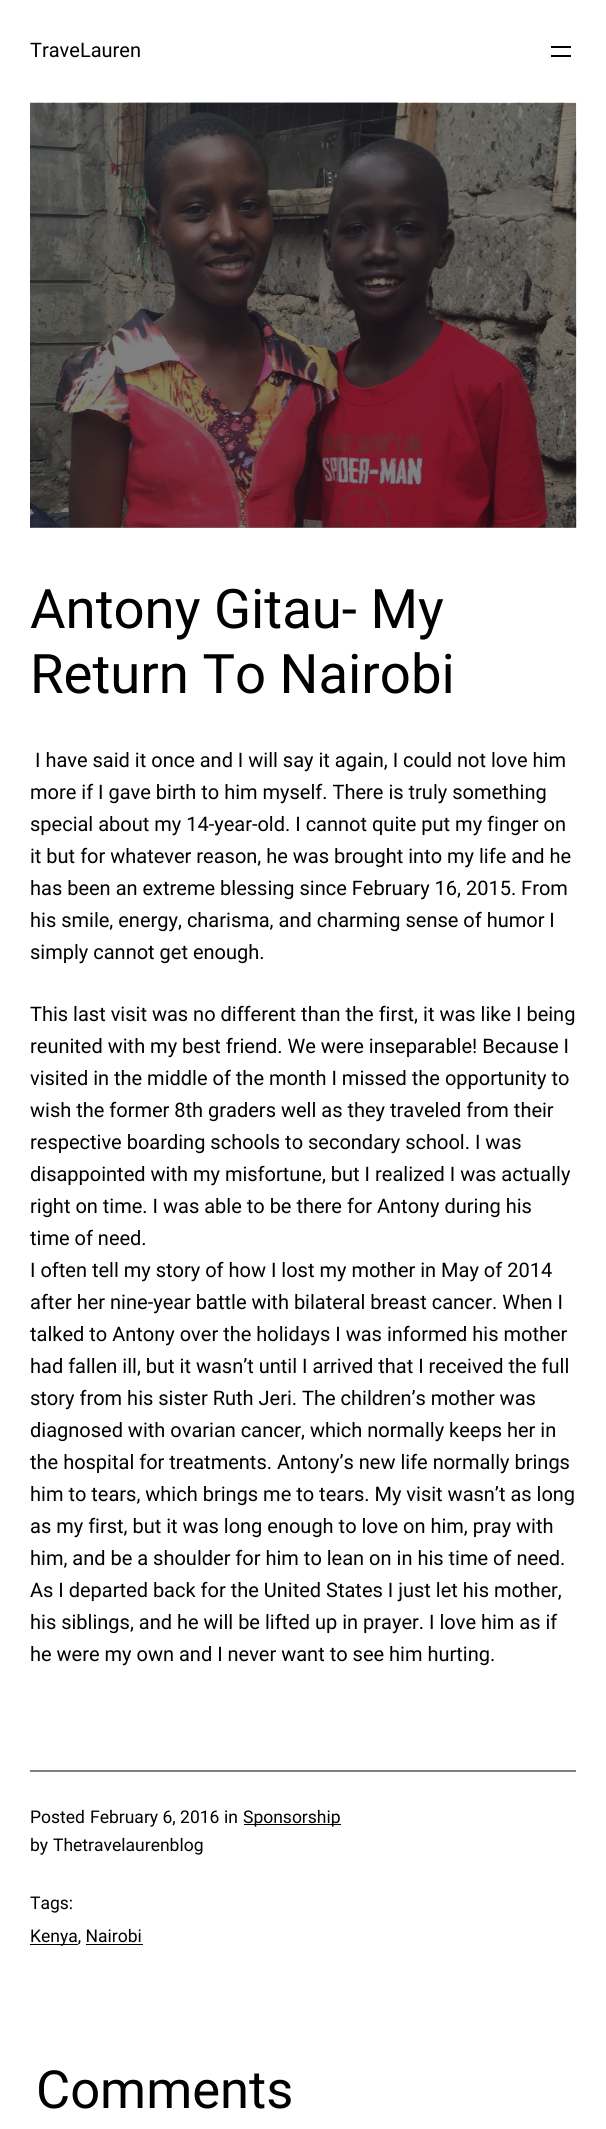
import math
import cairo


def paste(ctx, path, x, y, w, h):
	ctx.save()
	ctx.set_source_surface(cairo.ImageSurface.create_from_png(path), x, y)
	ctx.rectangle(x, y, w, h)
	ctx.fill()
	ctx.restore()

def draw(ctx):
	ctx.set_source_rgb(1, 1, 1)
	ctx.paint()
	ctx.set_source_rgb(0.502, 0.502, 0.502)
	ctx.rectangle(30, 527, 546, 1)
	ctx.fill()
	ctx.select_font_face('Roboto')
	ctx.set_font_size(20)
	ctx.set_source_rgb(0, 0, 0)
	ctx.move_to(30, 57)
	ctx.show_text('TraveLauren')
	ctx.rectangle(551, 46, 20, 2)
	ctx.fill()
	ctx.rectangle(551, 55, 20, 2)
	ctx.fill()
	paste(ctx, 'media/1.png', 30, 102, 547, 426)
	ctx.set_font_size(54.5)
	ctx.move_to(30, 628)
	ctx.show_text('Antony Gitau- My')
	ctx.move_to(30, 693)
	ctx.show_text('Return To Nairobi')
	ctx.set_font_size(20)
	for x, y, s in [
		(35, 767, 'I have said it once and I will say it again, I could not love him'),
		(30, 799, 'more if I gave birth to him myself. There is truly something'),
		(30, 831, 'special about my 14-year-old. I cannot quite put my finger on'),
		(30, 863, 'it but for whatever reason, he was brought into my life and he'),
		(30, 895, 'has been an extreme blessing since February 16, 2015. From'),
		(30, 927, 'his smile, energy, charisma, and charming sense of humor I'),
		(30, 959, 'simply cannot get enough.'),
		(30, 1021, 'This last visit was no different than the first, it was like I being'),
		(30, 1053, 'reunited with my best friend. We were inseparable! Because I'),
		(30, 1085, 'visited in the middle of the month I missed the opportunity to'),
		(30, 1117, 'wish the former 8th graders well as they traveled from their'),
		(30, 1149, 'respective boarding schools to secondary school. I was'),
		(30, 1181, 'disappointed with my misfortune, but I realized I was actually'),
		(30, 1213, 'right on time. I was able to be there for Antony during his'),
		(30, 1245, 'time of need.'),
		(30, 1277, 'I often tell my story of how I lost my mother in May of 2014'),
		(30, 1309, 'after her nine-year battle with bilateral breast cancer. When I'),
		(30, 1341, 'talked to Antony over the holidays I was informed his mother'),
		(30, 1373, 'had fallen ill, but it wasn’t until I arrived that I received the full'),
		(30, 1405, 'story from his sister Ruth Jeri. The children’s mother was'),
		(30, 1437, 'diagnosed with ovarian cancer, which normally keeps her in'),
		(30, 1469, 'the hospital for treatments. Antony’s new life normally brings'),
		(30, 1501, 'him to tears, which brings me to tears. My visit wasn’t as long'),
		(30, 1533, 'as my first, but it was long enough to love on him, pray with'),
		(30, 1565, 'him, and be a shoulder for him to lean on in his time of need.'),
		(30, 1597, 'As I departed back for the United States I just let his mother,'),
		(30, 1629, 'his siblings, and he will be lifted up in prayer. I love him as if'),
		(30, 1661, 'he were my own and I never want to see him hurting.'),
	]:
		ctx.move_to(x, y)
		ctx.show_text(s)
	ctx.set_source_rgb(0.502, 0.502, 0.502)
	ctx.rectangle(30, 1770, 546, 2)
	ctx.fill()
	ctx.set_font_size(17.5)
	ctx.set_source_rgb(0, 0, 0)
	for x, y, s in [
		(30, 1823, 'Posted'),
		(90, 1823, 'February 6, 2016'),
		(224, 1823, 'in'),
	]:
		ctx.move_to(x, y)
		ctx.show_text(s)
	ctx.rectangle(244, 1824, 97, 1)
	ctx.fill()
	for x, y, s in [
		(243, 1823, 'Sponsorship'),
		(30, 1851, 'by'),
		(53, 1851, 'Thetravelaurenblog'),
		(30, 1909, 'Tags:'),
	]:
		ctx.move_to(x, y)
		ctx.show_text(s)
	ctx.rectangle(30, 1944, 48, 1)
	ctx.fill()
	ctx.move_to(30, 1942)
	ctx.show_text('Kenya, Nairobi')
	ctx.rectangle(86, 1944, 57, 1)
	ctx.fill()
	ctx.set_font_size(52.5)
	ctx.move_to(36, 2108)
	ctx.show_text('Comments')


surface = cairo.ImageSurface(cairo.FORMAT_RGB24, 606, 2129)
ctx = cairo.Context(surface)
options = cairo.FontOptions()
options.set_hint_metrics(cairo.HINT_METRICS_OFF)
options.set_hint_style(cairo.HINT_STYLE_NONE)
ctx.set_font_options(options)
ctx.set_miter_limit(4)
draw(ctx)
surface.write_to_png('image.png')
